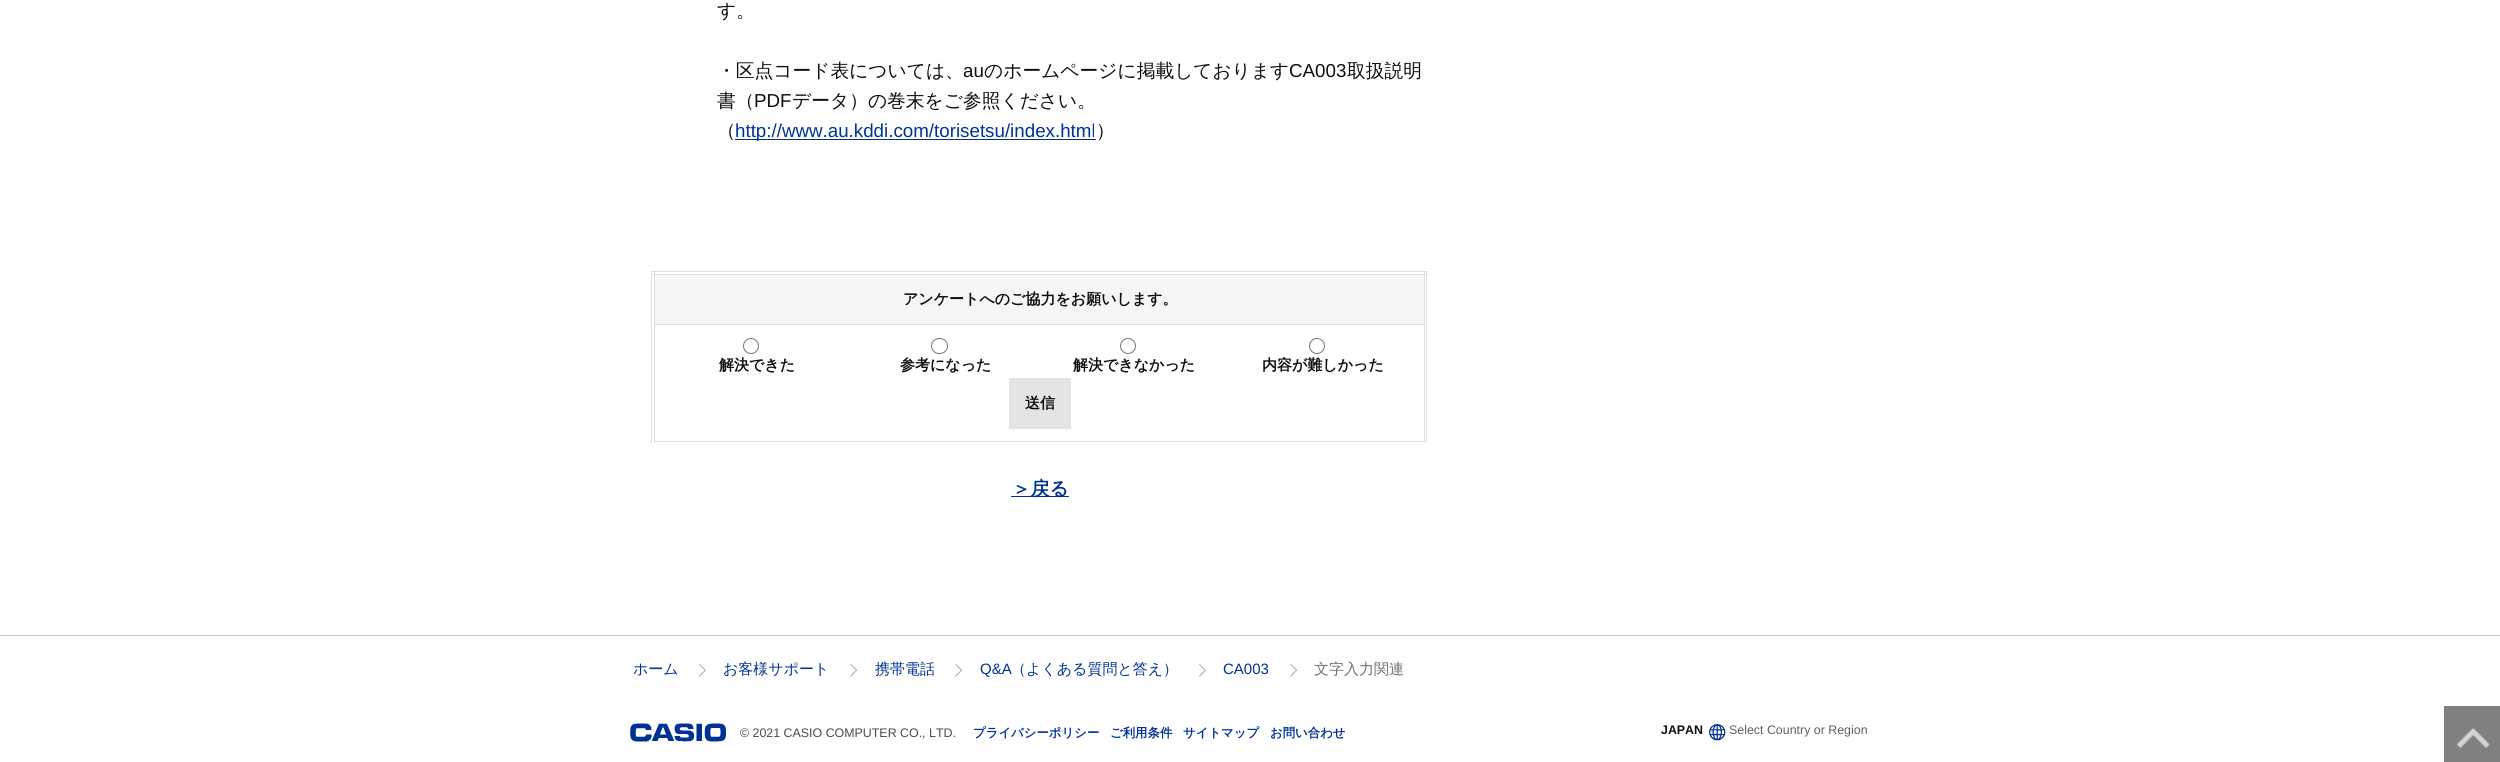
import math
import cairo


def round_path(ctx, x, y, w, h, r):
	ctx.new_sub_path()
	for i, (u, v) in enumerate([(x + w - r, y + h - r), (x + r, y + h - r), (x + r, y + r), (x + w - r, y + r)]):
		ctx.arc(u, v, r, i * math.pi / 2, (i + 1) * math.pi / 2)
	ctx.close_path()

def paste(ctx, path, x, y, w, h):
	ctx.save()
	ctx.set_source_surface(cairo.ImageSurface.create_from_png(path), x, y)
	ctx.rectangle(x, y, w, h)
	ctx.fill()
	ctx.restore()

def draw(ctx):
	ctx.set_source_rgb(1, 1, 1)
	ctx.paint()
	ctx.select_font_face('WenQuanYi Zen Hei Medium')
	ctx.set_font_size(18.75)
	ctx.set_source_rgb(0.063, 0.051, 0.051)
	ctx.move_to(717, 17)
	ctx.show_text('す。')
	ctx.move_to(717, 77)
	ctx.show_text('・区点コード表については、')
	ctx.select_font_face('Liberation Sans')
	ctx.move_to(963, 77)
	ctx.show_text('au')
	ctx.select_font_face('WenQuanYi Zen Hei Medium')
	ctx.move_to(984, 77)
	ctx.show_text('のホームページに掲載しております')
	ctx.select_font_face('Liberation Sans')
	ctx.move_to(1289, 77)
	ctx.show_text('CA003')
	ctx.select_font_face('WenQuanYi Zen Hei Medium')
	ctx.move_to(1347, 77)
	ctx.show_text('取扱説明')
	ctx.move_to(717, 107)
	ctx.show_text('書（')
	ctx.select_font_face('Liberation Sans')
	ctx.move_to(754, 107)
	ctx.show_text('PDF')
	ctx.select_font_face('WenQuanYi Zen Hei Medium')
	ctx.move_to(792, 107)
	ctx.show_text('データ）の巻末をご参照ください。')
	ctx.move_to(717, 137)
	ctx.show_text('（')
	ctx.set_source_rgb(0, 0.196, 0.588)
	ctx.rectangle(735, 139, 361, 1)
	ctx.fill()
	ctx.select_font_face('Liberation Sans')
	ctx.move_to(735, 137)
	ctx.show_text('http://www.au.kddi.com/torisetsu/index.html')
	ctx.select_font_face('WenQuanYi Zen Hei Medium')
	ctx.set_source_rgb(0.063, 0.051, 0.051)
	ctx.move_to(1096, 137)
	ctx.show_text('）')
	ctx.set_source_rgb(0.878, 0.878, 0.878)
	ctx.rectangle(651, 271, 777, 1)
	ctx.rectangle(651, 274, 777, 1)
	ctx.rectangle(1424, 271, 1, 172)
	ctx.rectangle(1426, 271, 1, 172)
	ctx.rectangle(651, 271, 1, 172)
	ctx.rectangle(654, 271, 1, 172)
	ctx.fill()
	ctx.set_source_rgb(0.961, 0.961, 0.961)
	ctx.rectangle(655, 275, 769, 49)
	ctx.fill()
	ctx.set_source_rgb(0.878, 0.878, 0.878)
	ctx.rectangle(655, 324, 769, 1)
	ctx.fill()
	ctx.select_font_face('WenQuanYi Zen Hei', cairo.FONT_SLANT_NORMAL, cairo.FONT_WEIGHT_BOLD)
	ctx.set_font_size(15)
	ctx.set_source_rgb(0.063, 0.051, 0.051)
	ctx.move_to(903, 304)
	ctx.show_text('アンケートへのご協力をお願いします。')
	ctx.set_source_rgb(0.878, 0.878, 0.878)
	ctx.rectangle(655, 441, 769, 1)
	ctx.fill()
	ctx.arc(751, 346, 7.5, 0, 2 * math.pi)
	ctx.set_source_rgb(0.463, 0.463, 0.463)
	ctx.set_line_width(1)
	ctx.stroke()
	ctx.set_source_rgb(0.063, 0.051, 0.051)
	ctx.move_to(719, 370)
	ctx.show_text('解決できた')
	round_path(ctx, 931.5, 338.5, 16, 15, 7.5)
	ctx.set_source_rgb(0.463, 0.463, 0.463)
	ctx.stroke()
	ctx.set_source_rgb(0.063, 0.051, 0.051)
	ctx.move_to(900, 370)
	ctx.show_text('参考になった')
	ctx.new_path()
	ctx.arc(1128, 346, 7.5, 0, 2 * math.pi)
	ctx.set_source_rgb(0.463, 0.463, 0.463)
	ctx.stroke()
	ctx.set_source_rgb(0.063, 0.051, 0.051)
	ctx.move_to(1073, 370)
	ctx.show_text('解決できなかった')
	ctx.new_path()
	ctx.arc(1317, 346, 7.5, 0, 2 * math.pi)
	ctx.set_source_rgb(0.463, 0.463, 0.463)
	ctx.stroke()
	ctx.set_source_rgb(0.063, 0.051, 0.051)
	ctx.move_to(1262, 370)
	ctx.show_text('内容が難しかった')
	ctx.set_source_rgb(0.894, 0.894, 0.894)
	ctx.rectangle(1009, 378, 62, 51)
	ctx.fill()
	ctx.set_source_rgb(0.063, 0.051, 0.051)
	ctx.move_to(1025, 408)
	ctx.show_text('送信')
	ctx.set_source_rgb(0, 0.196, 0.588)
	ctx.rectangle(1011, 496, 58, 1)
	ctx.fill()
	ctx.set_font_size(18.75)
	ctx.move_to(1012, 495)
	ctx.show_text('＞戻る')
	ctx.set_source_rgb(0.8, 0.8, 0.8)
	ctx.rectangle(0, 635, 2500, 1)
	ctx.fill()
	ctx.select_font_face('WenQuanYi Zen Hei Medium')
	ctx.set_font_size(15)
	ctx.set_source_rgb(0, 0.196, 0.588)
	ctx.move_to(633, 674)
	ctx.show_text('ホーム')
	paste(ctx, 'media/1.png', 699, 664, 7, 13)
	ctx.move_to(723, 674)
	ctx.show_text('お客様サポート')
	paste(ctx, 'media/2.png', 850, 663, 8, 14)
	ctx.move_to(875, 674)
	ctx.show_text('携帯電話')
	paste(ctx, 'media/2.png', 955, 663, 8, 14)
	ctx.select_font_face('Liberation Sans')
	ctx.move_to(980, 674)
	ctx.show_text('Q&A')
	ctx.select_font_face('WenQuanYi Zen Hei Medium')
	ctx.move_to(1011, 674)
	ctx.show_text('（よくある質問と答え）')
	paste(ctx, 'media/1.png', 1199, 664, 7, 13)
	ctx.select_font_face('Liberation Sans')
	ctx.move_to(1223, 674)
	ctx.show_text('CA003')
	paste(ctx, 'media/2.png', 1290, 663, 8, 14)
	ctx.select_font_face('WenQuanYi Zen Hei Medium')
	ctx.set_source_rgb(0.439, 0.439, 0.439)
	ctx.move_to(1314, 674)
	ctx.show_text('文字入力関連')
	paste(ctx, 'media/3.png', 630, 723, 96, 19)
	ctx.select_font_face('Liberation Sans')
	ctx.set_font_size(12.4)
	ctx.set_source_rgb(0.298, 0.29, 0.29)
	ctx.move_to(740, 737)
	ctx.show_text('© 2021 CASIO COMPUTER CO., LTD.')
	ctx.select_font_face('WenQuanYi Zen Hei', cairo.FONT_SLANT_NORMAL, cairo.FONT_WEIGHT_BOLD)
	ctx.set_source_rgb(0, 0.196, 0.588)
	for x, y, s in [
		(973, 737, 'プライバシーポリシー'),
		(1110, 737, 'ご利用条件'),
		(1183, 737, 'サイトマップ'),
		(1270, 737, 'お問い合わせ'),
	]:
		ctx.move_to(x, y)
		ctx.show_text(s)
	ctx.select_font_face('Liberation Sans', cairo.FONT_SLANT_NORMAL, cairo.FONT_WEIGHT_BOLD)
	ctx.set_source_rgb(0.063, 0.051, 0.051)
	ctx.move_to(1661, 734)
	ctx.show_text('JAPAN')
	paste(ctx, 'media/4.png', 1709, 724, 17, 17)
	ctx.select_font_face('Liberation Sans')
	ctx.set_source_rgb(0.376, 0.376, 0.376)
	ctx.move_to(1729, 734)
	ctx.show_text('Select Country or Region')
	ctx.set_source_rgb(0.502, 0.502, 0.502)
	ctx.rectangle(2444, 706, 56, 56)
	ctx.fill()
	paste(ctx, 'media/5.png', 2456, 727, 34, 21)


surface = cairo.ImageSurface(cairo.FORMAT_RGB24, 2500, 762)
ctx = cairo.Context(surface)
options = cairo.FontOptions()
options.set_hint_metrics(cairo.HINT_METRICS_OFF)
options.set_hint_style(cairo.HINT_STYLE_NONE)
ctx.set_font_options(options)
ctx.set_miter_limit(4)
draw(ctx)
surface.write_to_png('image.png')
